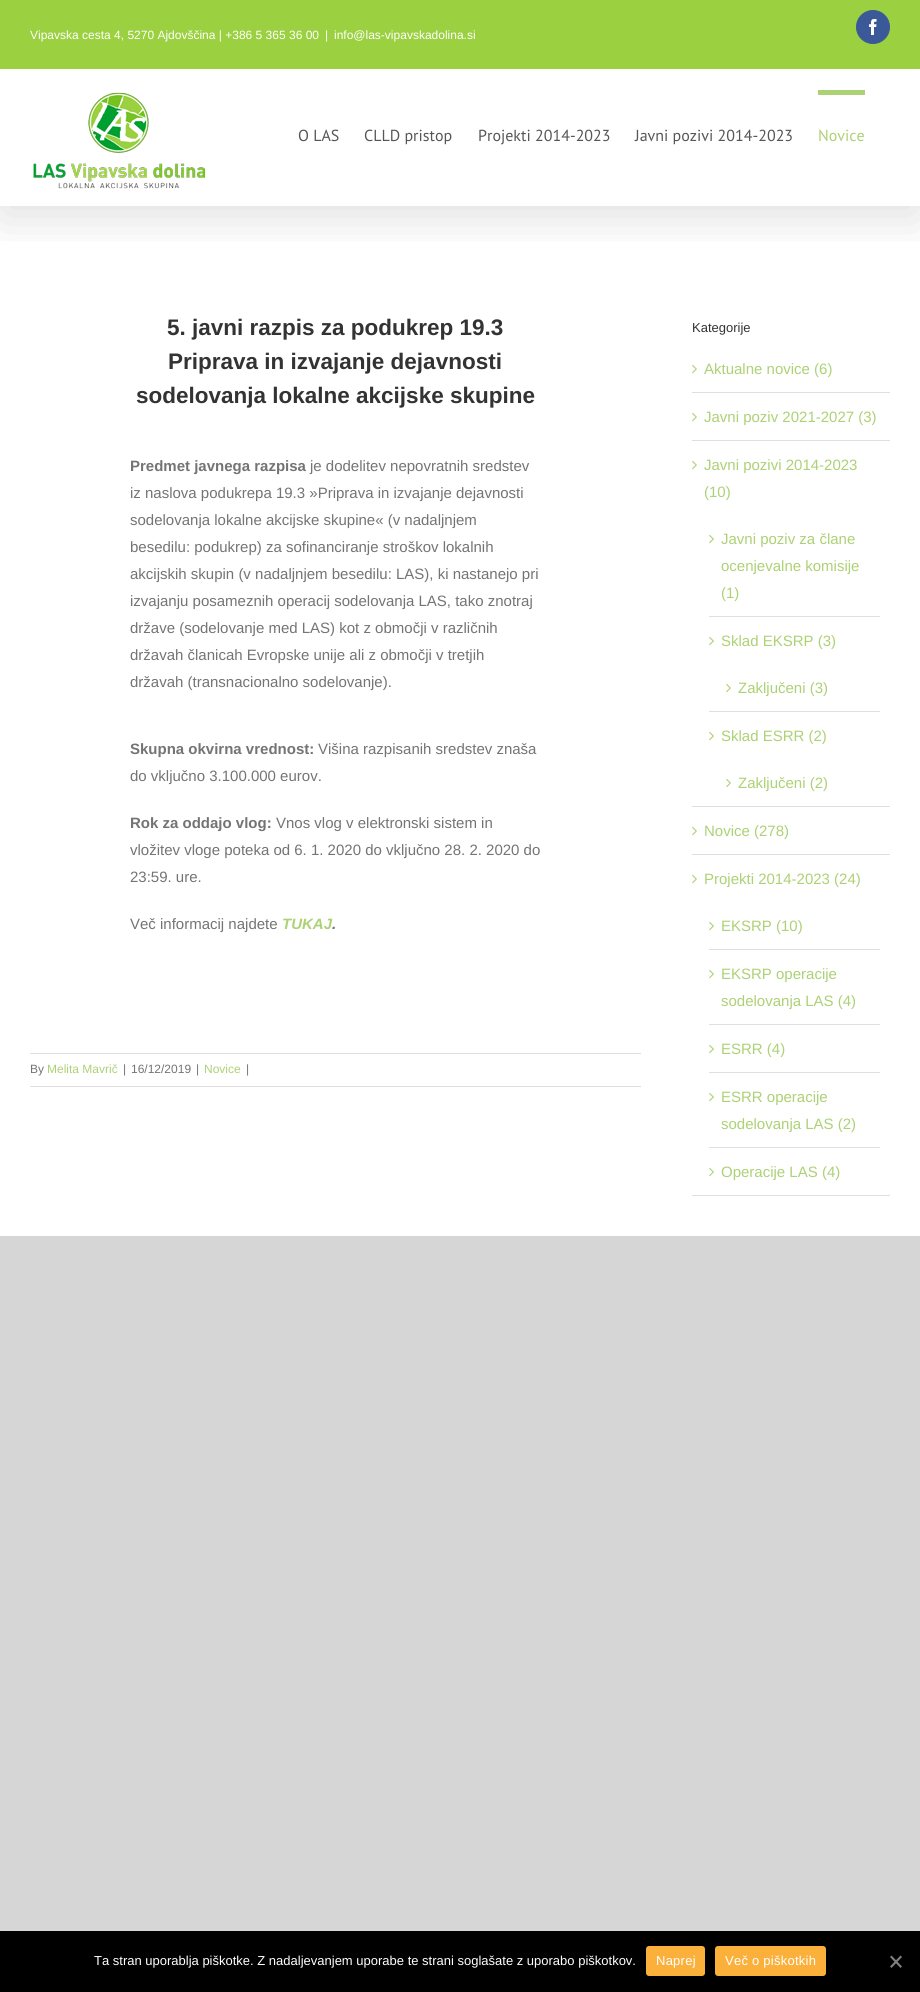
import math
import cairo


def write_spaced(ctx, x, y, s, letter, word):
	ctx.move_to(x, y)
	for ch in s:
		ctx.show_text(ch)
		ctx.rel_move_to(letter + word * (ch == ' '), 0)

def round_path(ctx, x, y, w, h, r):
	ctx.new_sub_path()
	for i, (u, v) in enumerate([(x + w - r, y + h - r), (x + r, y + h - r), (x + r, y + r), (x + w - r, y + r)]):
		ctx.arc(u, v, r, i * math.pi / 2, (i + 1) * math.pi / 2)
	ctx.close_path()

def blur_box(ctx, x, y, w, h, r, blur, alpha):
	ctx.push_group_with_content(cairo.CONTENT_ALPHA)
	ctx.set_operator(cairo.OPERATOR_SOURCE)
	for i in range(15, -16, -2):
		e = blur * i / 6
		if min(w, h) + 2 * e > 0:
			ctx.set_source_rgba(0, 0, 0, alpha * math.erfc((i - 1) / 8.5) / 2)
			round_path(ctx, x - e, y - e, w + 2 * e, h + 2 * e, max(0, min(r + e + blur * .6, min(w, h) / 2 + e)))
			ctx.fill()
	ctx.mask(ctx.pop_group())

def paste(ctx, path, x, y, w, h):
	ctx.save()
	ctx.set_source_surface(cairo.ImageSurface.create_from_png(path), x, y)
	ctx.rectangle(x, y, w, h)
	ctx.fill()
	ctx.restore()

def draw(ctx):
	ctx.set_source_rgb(0.843, 0.839, 0.839)
	ctx.paint()
	ctx.set_source_rgb(1, 1, 1)
	ctx.rectangle(0, 70, 920, 1166)
	ctx.fill()
	ctx.save()
	ctx.rectangle(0, 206, 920, 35)
	ctx.clip()
	ctx.set_source_rgb(0, 0, 0)
	blur_box(ctx, 2, 12, 916, 202, 0, 25, 0.14)
	ctx.restore()
	ctx.set_source_rgb(0.608, 0.816, 0.255)
	ctx.rectangle(0, 0, 920, 69)
	ctx.fill()
	ctx.set_source_rgb(1, 1, 1)
	ctx.rectangle(0, 69, 920, 1)
	ctx.fill()
	ctx.select_font_face('Liberation Sans')
	ctx.set_font_size(12)
	for x, y, s in [
		(30, 39, 'Vipavska cesta 4, 5270 Ajdovščina | +386 5 365 36 00'),
		(325, 39, '|'),
		(334, 39, 'info@las-vipavskadolina.si'),
	]:
		ctx.move_to(x, y)
		ctx.show_text(s)
	ctx.set_source_rgb(0.231, 0.349, 0.596)
	ctx.new_path()
	ctx.arc(873, 27, 16.5, 0, 2 * math.pi)
	ctx.fill_preserve()
	ctx.set_line_width(1)
	ctx.stroke()
	paste(ctx, 'media/1.png', 869, 19, 8, 16)
	paste(ctx, 'media/2.png', 33, 92, 173, 97)
	ctx.select_font_face('PT Sans')
	ctx.set_font_size(16)
	ctx.set_source_rgb(0.337, 0.337, 0.337)
	for x, y, s in [
		(298, 141, 'O LAS'),
		(364, 141, 'CLLD pristop'),
		(478, 141, 'Projekti 2014-2023'),
		(635, 141, 'Javni pozivi 2014-2023'),
	]:
		ctx.move_to(x, y)
		ctx.show_text(s)
	ctx.set_source_rgb(0.678, 0.82, 0.459)
	ctx.rectangle(818, 90, 47, 5)
	ctx.fill()
	ctx.move_to(818, 141)
	ctx.show_text('Novice')
	ctx.select_font_face('Liberation Sans', cairo.FONT_SLANT_NORMAL, cairo.FONT_WEIGHT_BOLD)
	ctx.set_font_size(22.5)
	ctx.set_source_rgb(0.2, 0.2, 0.2)
	for x, y, s in [
		(167, 335, '5. javni razpis za podukrep 19.3'),
		(168, 369, 'Priprava in izvajanje dejavnosti'),
		(136, 403, 'sodelovanja lokalne akcijske skupine'),
	]:
		ctx.move_to(x, y)
		ctx.show_text(s)
	ctx.set_font_size(15)
	ctx.set_source_rgb(0.455, 0.455, 0.455)
	ctx.move_to(130, 471)
	ctx.show_text('Predmet javnega razpisa')
	ctx.select_font_face('Liberation Sans')
	for x, y, s in [
		(310, 471, 'je dodelitev nepovratnih sredstev'),
		(130, 498, 'iz naslova podukrepa 19.3 »Priprava in izvajanje dejavnosti'),
		(130, 525, 'sodelovanja lokalne akcijske skupine« (v nadaljnjem'),
		(130, 552, 'besedilu: podukrep) za sofinanciranje stroškov lokalnih'),
		(130, 579, 'akcijskih skupin (v nadaljnjem besedilu: LAS), ki nastanejo pri'),
		(130, 606, 'izvajanju posameznih operacij sodelovanja LAS, tako znotraj'),
		(130, 633, 'države (sodelovanje med LAS) kot z območji v različnih'),
		(130, 660, 'državah članicah Evropske unije ali z območji v tretjih'),
		(130, 687, 'državah (transnacionalno sodelovanje).'),
	]:
		ctx.move_to(x, y)
		ctx.show_text(s)
	ctx.select_font_face('Liberation Sans', cairo.FONT_SLANT_NORMAL, cairo.FONT_WEIGHT_BOLD)
	ctx.move_to(130, 754)
	ctx.show_text('Skupna okvirna vrednost:')
	ctx.select_font_face('Liberation Sans')
	ctx.move_to(318, 754)
	ctx.show_text('Višina razpisanih sredstev znaša')
	ctx.move_to(130, 781)
	ctx.show_text('do vključno 3.100.000 eurov.')
	ctx.select_font_face('Liberation Sans', cairo.FONT_SLANT_NORMAL, cairo.FONT_WEIGHT_BOLD)
	ctx.move_to(130, 828)
	ctx.show_text('Rok za oddajo vlog:')
	ctx.select_font_face('Liberation Sans')
	for x, y, s in [
		(276, 828, 'Vnos vlog v elektronski sistem in'),
		(130, 855, 'vložitev vloge poteka od 6. 1. 2020 do vključno 28. 2. 2020 do'),
		(130, 882, '23:59. ure.'),
		(130, 929, 'Več informacij najdete'),
	]:
		ctx.move_to(x, y)
		ctx.show_text(s)
	ctx.select_font_face('Liberation Sans', cairo.FONT_SLANT_ITALIC, cairo.FONT_WEIGHT_BOLD)
	ctx.set_source_rgb(0.678, 0.82, 0.459)
	ctx.move_to(282, 929)
	ctx.show_text('TUKAJ')
	ctx.set_source_rgb(0.455, 0.455, 0.455)
	ctx.move_to(332, 929)
	ctx.show_text('.')
	ctx.set_source_rgb(0.878, 0.871, 0.871)
	ctx.rectangle(30, 1053, 611, 1)
	ctx.fill()
	ctx.rectangle(30, 1086, 611, 1)
	ctx.fill()
	ctx.select_font_face('Liberation Sans')
	ctx.set_font_size(12)
	ctx.set_source_rgb(0.455, 0.455, 0.455)
	ctx.move_to(30, 1073)
	ctx.show_text('By')
	ctx.set_source_rgb(0.678, 0.82, 0.459)
	ctx.move_to(47, 1073)
	ctx.show_text('Melita Mavrič')
	ctx.set_source_rgb(0.455, 0.455, 0.455)
	for x, y, s in [
		(123, 1073, '|'),
		(131, 1073, '16/12/2019'),
		(196, 1073, '|'),
	]:
		ctx.move_to(x, y)
		ctx.show_text(s)
	ctx.set_source_rgb(0.678, 0.82, 0.459)
	ctx.move_to(204, 1073)
	ctx.show_text('Novice')
	ctx.set_source_rgb(0.455, 0.455, 0.455)
	ctx.move_to(246, 1073)
	ctx.show_text('|')
	ctx.set_font_size(13)
	ctx.set_source_rgb(0.2, 0.2, 0.2)
	ctx.move_to(692, 332)
	ctx.show_text('Kategorije')
	ctx.set_source_rgb(0.878, 0.871, 0.871)
	ctx.rectangle(692, 392, 198, 1)
	ctx.fill()
	paste(ctx, 'media/3.png', 692, 364, 5, 10)
	ctx.set_font_size(15)
	ctx.set_source_rgb(0.678, 0.82, 0.459)
	ctx.move_to(704, 374)
	ctx.show_text('Aktualne novice (6)')
	ctx.set_source_rgb(0.878, 0.871, 0.871)
	ctx.rectangle(692, 440, 198, 1)
	ctx.fill()
	paste(ctx, 'media/3.png', 692, 412, 5, 10)
	ctx.set_source_rgb(0.678, 0.82, 0.459)
	ctx.move_to(704, 422)
	ctx.show_text('Javni poziv 2021-2027 (3)')
	ctx.set_source_rgb(0.878, 0.871, 0.871)
	ctx.rectangle(692, 806, 198, 1)
	ctx.fill()
	paste(ctx, 'media/3.png', 692, 460, 5, 10)
	ctx.set_source_rgb(0.678, 0.82, 0.459)
	ctx.move_to(704, 470)
	ctx.show_text('Javni pozivi 2014-2023')
	ctx.move_to(704, 497)
	ctx.show_text('(10)')
	ctx.set_source_rgb(0.878, 0.871, 0.871)
	ctx.rectangle(709, 616, 171, 1)
	ctx.fill()
	paste(ctx, 'media/3.png', 709, 534, 5, 10)
	ctx.set_source_rgb(0.678, 0.82, 0.459)
	for x, y, s in [
		(721, 544, 'Javni poziv za člane'),
		(721, 571, 'ocenjevalne komisije'),
		(721, 598, '(1)'),
	]:
		ctx.move_to(x, y)
		ctx.show_text(s)
	ctx.set_source_rgb(0.878, 0.871, 0.871)
	ctx.rectangle(709, 711, 171, 1)
	ctx.fill()
	paste(ctx, 'media/3.png', 709, 636, 5, 10)
	ctx.set_source_rgb(0.678, 0.82, 0.459)
	ctx.move_to(721, 646)
	ctx.show_text('Sklad EKSRP (3)')
	paste(ctx, 'media/3.png', 726, 683, 5, 10)
	ctx.move_to(738, 693)
	ctx.show_text('Zaključeni (3)')
	paste(ctx, 'media/3.png', 709, 731, 5, 10)
	ctx.move_to(721, 741)
	ctx.show_text('Sklad ESRR (2)')
	paste(ctx, 'media/3.png', 726, 778, 5, 10)
	ctx.move_to(738, 788)
	ctx.show_text('Zaključeni (2)')
	ctx.set_source_rgb(0.878, 0.871, 0.871)
	ctx.rectangle(692, 854, 198, 1)
	ctx.fill()
	paste(ctx, 'media/3.png', 692, 826, 5, 10)
	ctx.set_source_rgb(0.678, 0.82, 0.459)
	ctx.move_to(704, 836)
	ctx.show_text('Novice (278)')
	ctx.set_source_rgb(0.878, 0.871, 0.871)
	ctx.rectangle(692, 1195, 198, 1)
	ctx.fill()
	paste(ctx, 'media/3.png', 692, 874, 5, 10)
	ctx.set_source_rgb(0.678, 0.82, 0.459)
	ctx.move_to(704, 884)
	ctx.show_text('Projekti 2014-2023 (24)')
	ctx.set_source_rgb(0.878, 0.871, 0.871)
	ctx.rectangle(709, 949, 171, 1)
	ctx.fill()
	paste(ctx, 'media/3.png', 709, 921, 5, 10)
	ctx.set_source_rgb(0.678, 0.82, 0.459)
	ctx.move_to(721, 931)
	ctx.show_text('EKSRP (10)')
	ctx.set_source_rgb(0.878, 0.871, 0.871)
	ctx.rectangle(709, 1024, 171, 1)
	ctx.fill()
	paste(ctx, 'media/3.png', 709, 969, 5, 10)
	ctx.set_source_rgb(0.678, 0.82, 0.459)
	ctx.move_to(721, 979)
	ctx.show_text('EKSRP operacije')
	ctx.move_to(721, 1006)
	ctx.show_text('sodelovanja LAS (4)')
	ctx.set_source_rgb(0.878, 0.871, 0.871)
	ctx.rectangle(709, 1072, 171, 1)
	ctx.fill()
	paste(ctx, 'media/3.png', 709, 1044, 5, 10)
	ctx.set_source_rgb(0.678, 0.82, 0.459)
	ctx.move_to(721, 1054)
	ctx.show_text('ESRR (4)')
	ctx.set_source_rgb(0.878, 0.871, 0.871)
	ctx.rectangle(709, 1147, 171, 1)
	ctx.fill()
	paste(ctx, 'media/3.png', 709, 1092, 5, 10)
	ctx.set_source_rgb(0.678, 0.82, 0.459)
	ctx.move_to(721, 1102)
	ctx.show_text('ESRR operacije')
	ctx.move_to(721, 1129)
	ctx.show_text('sodelovanja LAS (2)')
	paste(ctx, 'media/3.png', 709, 1167, 5, 10)
	ctx.move_to(721, 1177)
	ctx.show_text('Operacije LAS (4)')
	ctx.set_source_rgb(0, 0, 0)
	ctx.rectangle(0, 1931, 920, 61)
	ctx.fill()
	ctx.set_font_size(13)
	ctx.set_source_rgb(1, 1, 1)
	ctx.move_to(94, 1965)
	ctx.show_text('Ta stran uporablja piškotke. Z nadaljevanjem uporabe te strani soglašate z uporabo piškotkov.')
	ctx.set_source_rgb(0.984, 0.69, 0.231)
	round_path(ctx, 646, 1946, 59, 30, 3)
	ctx.fill()
	ctx.set_source_rgb(1, 1, 1)
	write_spaced(ctx, 656, 1965, 'Naprej', 0.25, 0)
	ctx.set_source_rgb(0.984, 0.69, 0.231)
	round_path(ctx, 715, 1946, 111, 30, 3)
	ctx.fill()
	ctx.set_source_rgb(1, 1, 1)
	write_spaced(ctx, 725, 1965, 'Več o piškotkih', 0.25, 0)
	ctx.set_source_rgb(0.502, 0.502, 0.502)
	ctx.new_path()
	ctx.move_to(900.5, 1955.5)
	ctx.line_to(902, 1957)
	ctx.line_to(891.5, 1968)
	ctx.line_to(890, 1966.5)
	ctx.close_path()
	ctx.fill()
	ctx.new_path()
	ctx.move_to(890, 1957)
	ctx.line_to(891.5, 1955.5)
	ctx.line_to(902, 1966.5)
	ctx.line_to(900.5, 1968)
	ctx.close_path()
	ctx.fill()


surface = cairo.ImageSurface(cairo.FORMAT_RGB24, 920, 1992)
ctx = cairo.Context(surface)
options = cairo.FontOptions()
options.set_hint_metrics(cairo.HINT_METRICS_OFF)
options.set_hint_style(cairo.HINT_STYLE_NONE)
ctx.set_font_options(options)
ctx.set_miter_limit(4)
draw(ctx)
surface.write_to_png('image.png')
